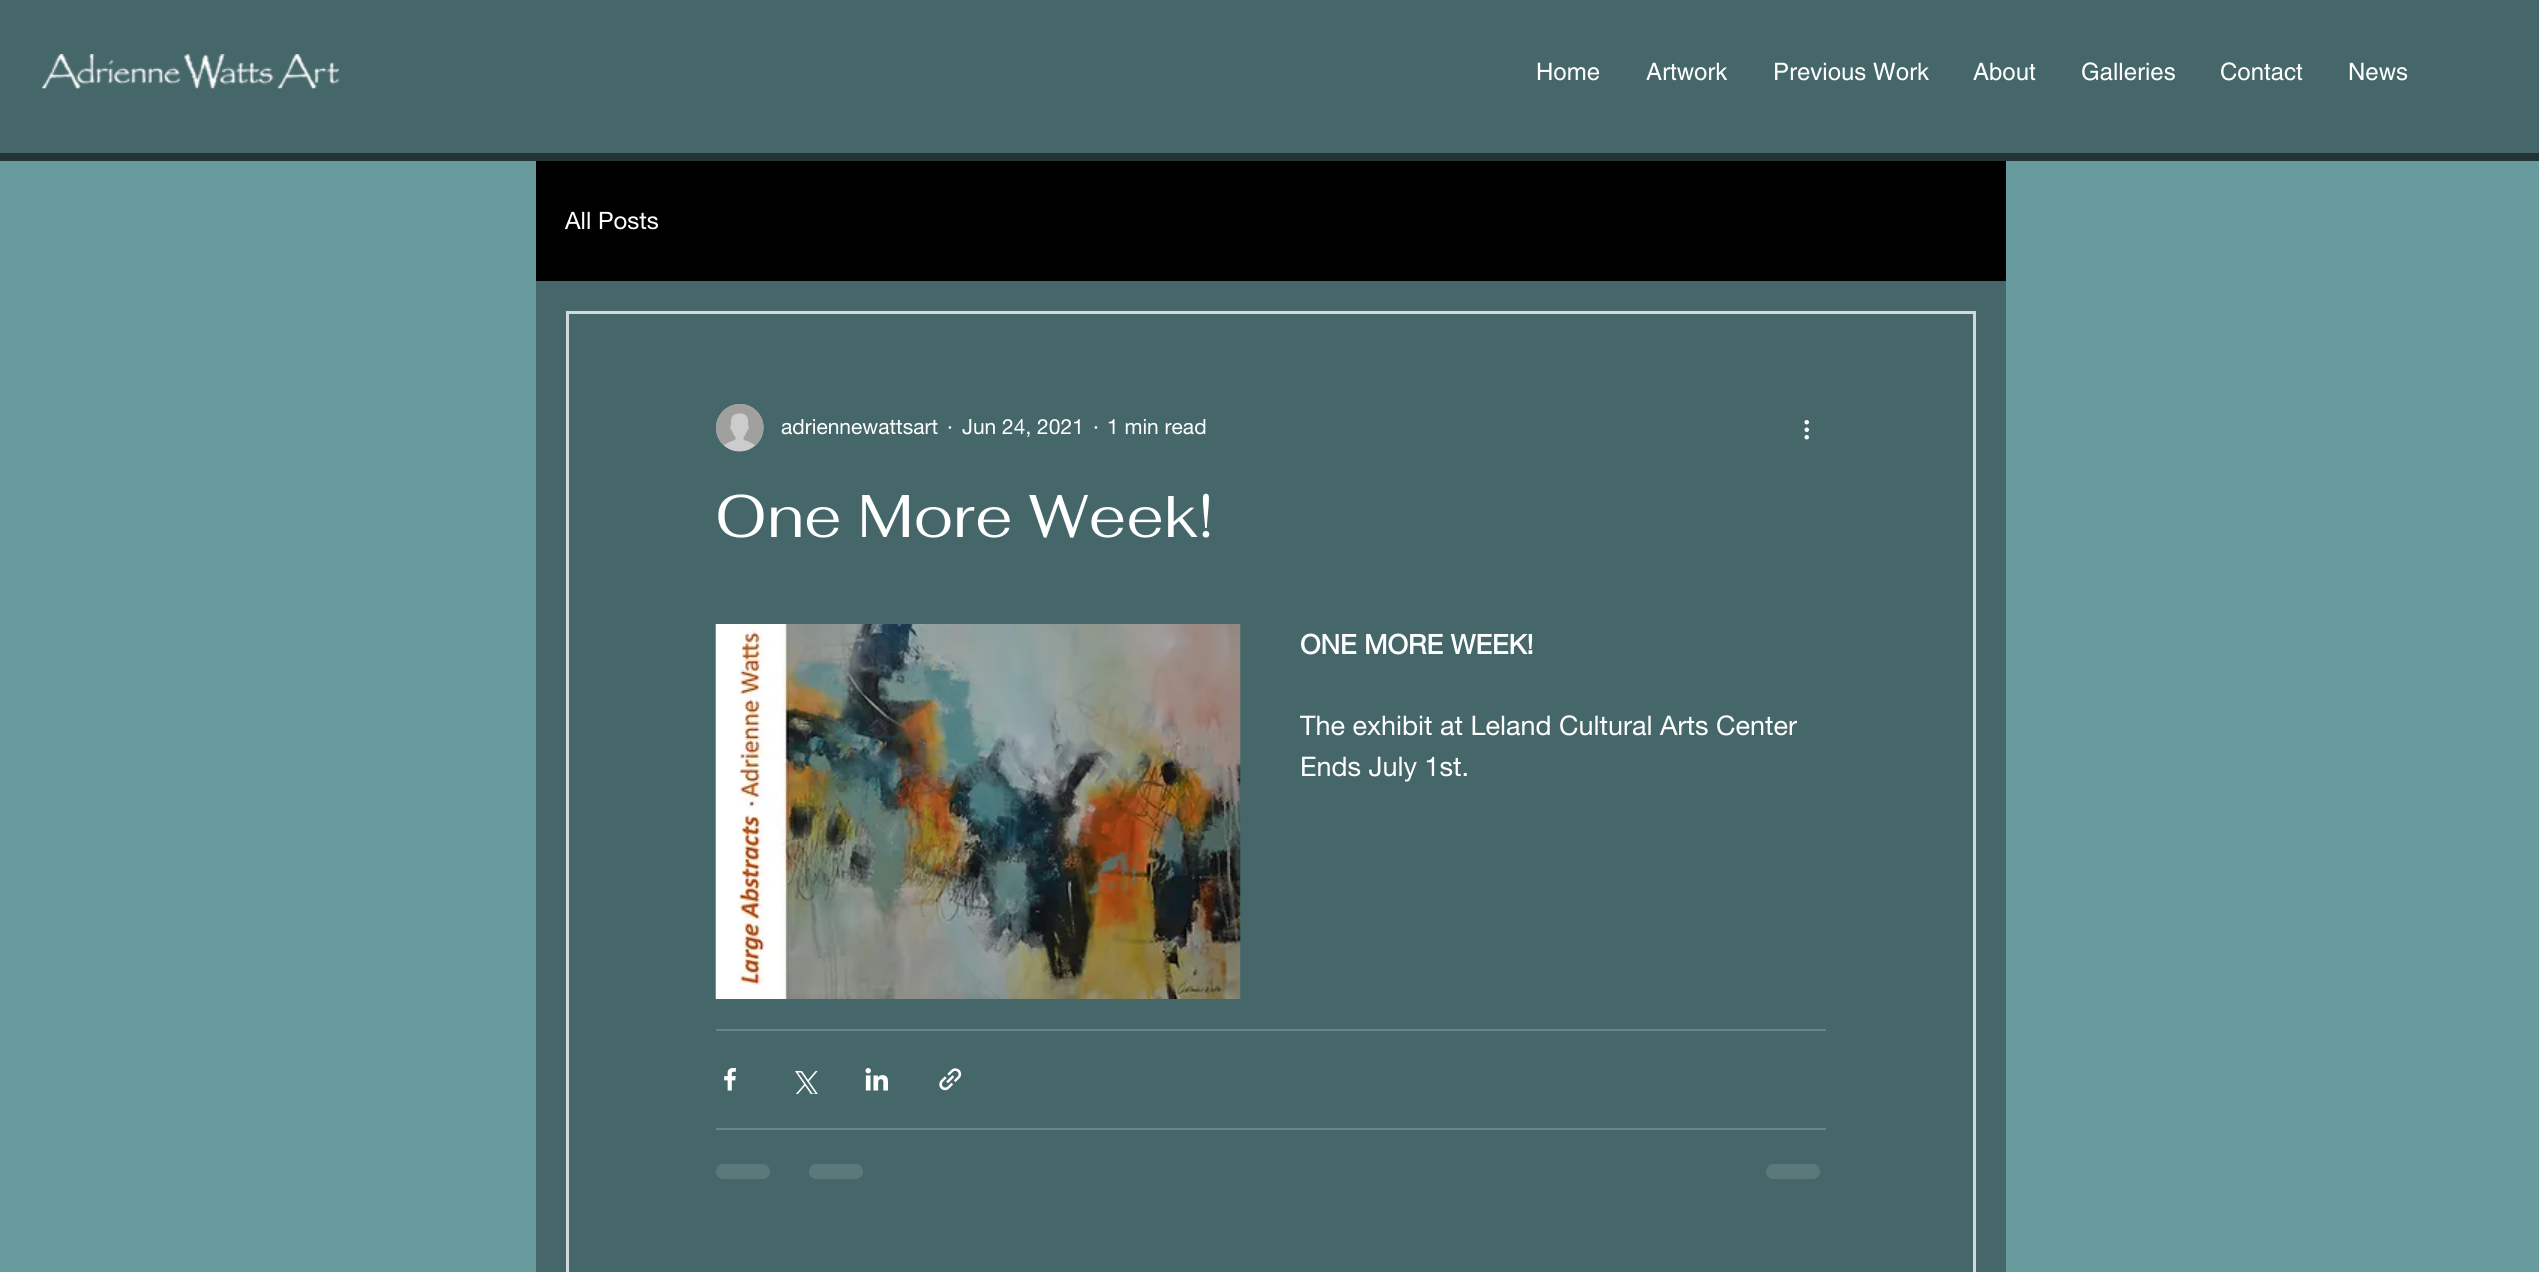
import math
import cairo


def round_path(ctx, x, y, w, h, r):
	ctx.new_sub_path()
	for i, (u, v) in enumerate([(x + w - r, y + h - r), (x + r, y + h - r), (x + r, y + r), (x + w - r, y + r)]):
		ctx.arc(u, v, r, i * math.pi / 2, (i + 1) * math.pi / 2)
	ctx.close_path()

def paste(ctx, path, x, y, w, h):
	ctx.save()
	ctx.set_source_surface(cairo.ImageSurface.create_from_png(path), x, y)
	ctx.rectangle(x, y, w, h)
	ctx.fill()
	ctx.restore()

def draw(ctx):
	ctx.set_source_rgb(0.271, 0.404, 0.412)
	ctx.paint()
	paste(ctx, 'media/1.png', 42, 54, 297, 35)
	ctx.select_font_face('helvetica')
	ctx.set_font_size(24)
	ctx.set_source_rgb(1, 1, 1)
	for x, y, s in [
		(1536, 80, 'Home'),
		(1646, 80, 'Artwork'),
		(1773, 80, 'Previous Work'),
		(1973, 80, 'About'),
		(2081, 80, 'Galleries'),
		(2220, 80, 'Contact'),
		(2348, 80, 'News'),
	]:
		ctx.move_to(x, y)
		ctx.show_text(s)
	ctx.set_source_rgb(0.137, 0.204, 0.204)
	ctx.rectangle(0, 153, 2539, 8)
	ctx.fill()
	ctx.set_source_rgb(0.408, 0.608, 0.616)
	ctx.rectangle(0, 161, 2539, 1111)
	ctx.fill()
	ctx.set_source_rgb(0.271, 0.404, 0.412)
	ctx.rectangle(536, 281, 1470, 991)
	ctx.fill()
	ctx.set_source_rgb(0, 0, 0)
	ctx.rectangle(536, 161, 1470, 120)
	ctx.fill()
	ctx.select_font_face('helvetica neue')
	ctx.set_source_rgb(1, 1, 1)
	ctx.move_to(565, 229)
	ctx.show_text('All Posts')
	ctx.rectangle(567.5, 312.5, 1407, 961)
	ctx.set_source_rgb(0.82, 0.851, 0.855)
	ctx.set_line_width(3)
	ctx.stroke()
	paste(ctx, 'media/2.png', 716, 404, 48, 48)
	ctx.set_font_size(21)
	ctx.set_source_rgb(1, 1, 1)
	for x, y, s in [
		(781, 434, 'adriennewattsart'),
		(947, 434, '·'),
		(962, 434, 'Jun 24, 2021'),
		(1093, 434, '·'),
		(1107, 434, '1 min read'),
	]:
		ctx.move_to(x, y)
		ctx.show_text(s)
	paste(ctx, 'media/3.png', 1804, 420, 5, 20)
	ctx.select_font_face('Fahkwang')
	ctx.set_font_size(60)
	ctx.move_to(715, 537)
	ctx.show_text('One More Week!')
	paste(ctx, 'media/4.png', 715, 624, 526, 375)
	ctx.select_font_face('helvetica neue', cairo.FONT_SLANT_NORMAL, cairo.FONT_WEIGHT_BOLD)
	ctx.set_font_size(27)
	ctx.move_to(1300, 654)
	ctx.show_text('ONE MORE WEEK!')
	ctx.select_font_face('helvetica neue')
	ctx.move_to(1300, 735)
	ctx.show_text('The exhibit at Leland Cultural Arts Center')
	ctx.move_to(1300, 776)
	ctx.show_text('Ends July 1st.')
	ctx.set_source_rgb(0.416, 0.522, 0.529)
	ctx.rectangle(716, 1029, 1110, 2)
	ctx.fill()
	paste(ctx, 'media/5.png', 724, 1068, 12, 23)
	paste(ctx, 'media/6.png', 795, 1071, 23, 23)
	paste(ctx, 'media/7.png', 865, 1068, 23, 23)
	paste(ctx, 'media/8.png', 939, 1068, 23, 23)
	ctx.rectangle(716, 1128, 1110, 2)
	ctx.fill()
	ctx.set_source_rgb(0.357, 0.475, 0.482)
	round_path(ctx, 716, 1164, 54, 15, 7.5)
	ctx.fill()
	round_path(ctx, 809, 1164, 54, 15, 7.5)
	ctx.fill()
	round_path(ctx, 1766, 1164, 54, 15, 7.5)
	ctx.fill()


surface = cairo.ImageSurface(cairo.FORMAT_RGB24, 2539, 1272)
ctx = cairo.Context(surface)
options = cairo.FontOptions()
options.set_hint_metrics(cairo.HINT_METRICS_OFF)
options.set_hint_style(cairo.HINT_STYLE_NONE)
ctx.set_font_options(options)
ctx.set_miter_limit(4)
draw(ctx)
surface.write_to_png('image.png')
